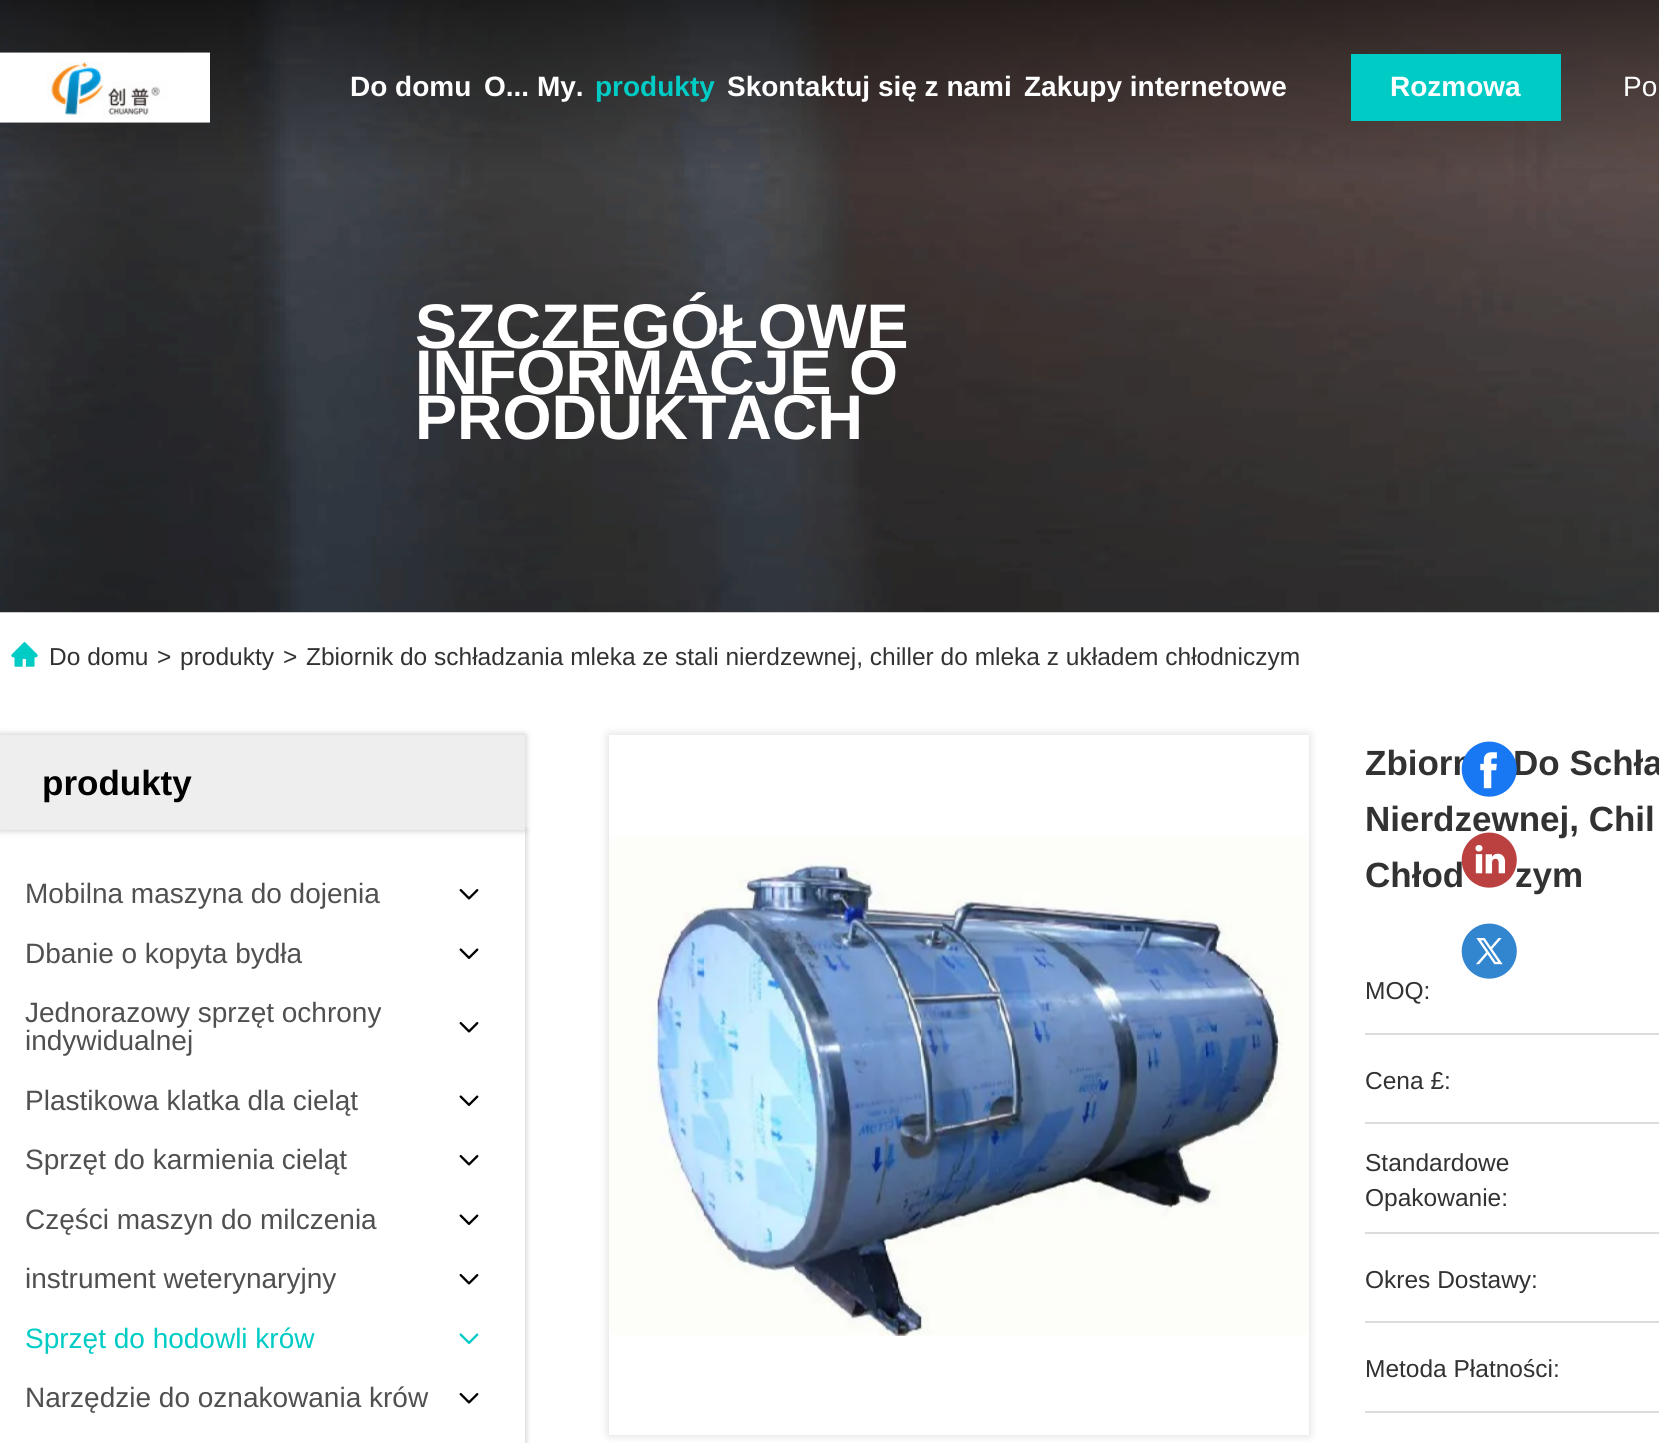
import math
import cairo


def round_path(ctx, x, y, w, h, r):
	ctx.new_sub_path()
	for i, (u, v) in enumerate([(x + w - r, y + h - r), (x + r, y + h - r), (x + r, y + r), (x + w - r, y + r)]):
		ctx.arc(u, v, r, i * math.pi / 2, (i + 1) * math.pi / 2)
	ctx.close_path()

def blur_box(ctx, x, y, w, h, r, blur, alpha):
	ctx.push_group_with_content(cairo.CONTENT_ALPHA)
	ctx.set_operator(cairo.OPERATOR_SOURCE)
	for i in range(15, -16, -2):
		e = blur * i / 6
		if min(w, h) + 2 * e > 0:
			ctx.set_source_rgba(0, 0, 0, alpha * math.erfc((i - 1) / 8.5) / 2)
			round_path(ctx, x - e, y - e, w + 2 * e, h + 2 * e, max(0, min(r + e + blur * .6, min(w, h) / 2 + e)))
			ctx.fill()
	ctx.mask(ctx.pop_group())

def paste(ctx, path, x, y, w, h):
	ctx.save()
	ctx.set_source_surface(cairo.ImageSurface.create_from_png(path), x, y)
	ctx.rectangle(x, y, w, h)
	ctx.fill()
	ctx.restore()

def draw(ctx):
	ctx.set_source_rgb(1, 1, 1)
	ctx.paint()
	paste(ctx, 'media/2.png', 0, 0, 1659, 613)
	paste(ctx, 'media/1.png', 0, 52, 210, 71)
	ctx.select_font_face('Liberation Sans', cairo.FONT_SLANT_NORMAL, cairo.FONT_WEIGHT_BOLD)
	ctx.set_font_size(28)
	ctx.set_source_rgb(1, 1, 1)
	ctx.move_to(350, 96)
	ctx.show_text('Do domu')
	ctx.move_to(484, 96)
	ctx.show_text('O... My.')
	ctx.set_source_rgb(0, 0.796, 0.769)
	ctx.move_to(595, 96)
	ctx.show_text('produkty')
	ctx.set_source_rgb(1, 1, 1)
	ctx.move_to(727, 96)
	ctx.show_text('Skontaktuj się z nami')
	ctx.move_to(1024, 96)
	ctx.show_text('Zakupy internetowe')
	ctx.set_source_rgb(0, 0.796, 0.769)
	ctx.rectangle(1351, 54, 210, 67)
	ctx.fill()
	ctx.set_source_rgb(1, 1, 1)
	ctx.move_to(1390, 96)
	ctx.show_text('Rozmowa')
	ctx.select_font_face('Liberation Sans')
	ctx.move_to(1623, 96)
	ctx.show_text('Po')
	ctx.select_font_face('Liberation Sans', cairo.FONT_SLANT_NORMAL, cairo.FONT_WEIGHT_BOLD)
	ctx.set_font_size(63)
	for x, y, s in [
		(415, 348, 'SZCZEGÓŁOWE'),
		(415, 394, 'INFORMACJE O'),
		(415, 439, 'PRODUKTACH'),
	]:
		ctx.move_to(x, y)
		ctx.show_text(s)
	paste(ctx, 'media/3.png', 11, 642, 27, 25)
	ctx.select_font_face('Liberation Sans')
	ctx.set_font_size(24.5)
	ctx.set_source_rgb(0.196, 0.196, 0.196)
	for x, y, s in [
		(49, 665, 'Do domu'),
		(157, 665, '>'),
		(180, 665, 'produkty'),
		(283, 665, '>'),
		(306, 665, 'Zbiornik do schładzania mleka ze stali nierdzewnej, chiller do mleka z układem chłodniczym'),
	]:
		ctx.move_to(x, y)
		ctx.show_text(s)
	ctx.set_source_rgb(0, 0, 0)
	blur_box(ctx, 0, 735, 525, 95, 0, 3.5, 0.25)
	ctx.save()
	ctx.rectangle(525, 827, 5, 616)
	ctx.clip()
	blur_box(ctx, 0, 830, 525, 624, 0, 3.5, 0.25)
	ctx.restore()
	ctx.set_source_rgb(0.933, 0.933, 0.933)
	ctx.rectangle(0, 735, 525, 95)
	ctx.fill()
	ctx.select_font_face('Liberation Sans', cairo.FONT_SLANT_NORMAL, cairo.FONT_WEIGHT_BOLD)
	ctx.set_font_size(35)
	ctx.set_source_rgb(0, 0, 0)
	ctx.move_to(42, 795)
	ctx.show_text('produkty')
	ctx.select_font_face('Liberation Sans')
	ctx.set_font_size(28)
	ctx.set_source_rgb(0.314, 0.314, 0.314)
	ctx.move_to(25, 903)
	ctx.show_text('Mobilna maszyna do dojenia')
	paste(ctx, 'media/4.png', 459, 889, 20, 11)
	ctx.move_to(25, 963)
	ctx.show_text('Dbanie o kopyta bydła')
	paste(ctx, 'media/5.png', 459, 948, 20, 11)
	ctx.move_to(25, 1022)
	ctx.show_text('Jednorazowy sprzęt ochrony')
	ctx.move_to(25, 1050)
	ctx.show_text('indywidualnej')
	paste(ctx, 'media/4.png', 459, 1022, 20, 11)
	ctx.move_to(25, 1110)
	ctx.show_text('Plastikowa klatka dla cieląt')
	paste(ctx, 'media/5.png', 459, 1095, 20, 11)
	ctx.move_to(25, 1169)
	ctx.show_text('Sprzęt do karmienia cieląt')
	paste(ctx, 'media/4.png', 459, 1155, 20, 11)
	ctx.move_to(25, 1229)
	ctx.show_text('Części maszyn do milczenia')
	paste(ctx, 'media/5.png', 459, 1214, 20, 11)
	ctx.move_to(25, 1288)
	ctx.show_text('instrument weterynaryjny')
	paste(ctx, 'media/4.png', 459, 1274, 20, 11)
	ctx.set_source_rgb(0, 0.796, 0.769)
	ctx.move_to(25, 1348)
	ctx.show_text('Sprzęt do hodowli krów')
	paste(ctx, 'media/6.png', 459, 1333, 20, 11)
	ctx.set_source_rgb(0.314, 0.314, 0.314)
	ctx.move_to(25, 1407)
	ctx.show_text('Narzędzie do oznakowania krów')
	paste(ctx, 'media/4.png', 459, 1393, 20, 11)
	ctx.save()
	ctx.set_fill_rule(cairo.FILL_RULE_EVEN_ODD)
	ctx.new_path()
	ctx.move_to(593, 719)
	ctx.line_to(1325, 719)
	ctx.line_to(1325, 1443)
	ctx.line_to(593, 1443)
	ctx.close_path()
	ctx.move_to(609, 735)
	ctx.line_to(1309, 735)
	ctx.line_to(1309, 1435)
	ctx.line_to(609, 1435)
	ctx.close_path()
	ctx.clip()
	ctx.set_source_rgb(0, 0, 0)
	blur_box(ctx, 609, 735, 700, 700, 0, 5, 0.15)
	ctx.restore()
	paste(ctx, 'media/7.png', 609, 837, 700, 499)
	ctx.select_font_face('Liberation Sans', cairo.FONT_SLANT_NORMAL, cairo.FONT_WEIGHT_BOLD)
	ctx.set_font_size(35)
	ctx.set_source_rgb(0.196, 0.196, 0.196)
	for x, y, s in [
		(1365, 775, 'Zbiorn'),
		(1513, 775, 'Do Schła'),
		(1365, 831, 'Nierdzewnej, Chil'),
		(1365, 887, 'Chłod'),
		(1515, 887, 'zym'),
	]:
		ctx.move_to(x, y)
		ctx.show_text(s)
	ctx.set_source_rgb(0.863, 0.863, 0.863)
	ctx.rectangle(1365, 1033, 294, 2)
	ctx.fill()
	ctx.select_font_face('Liberation Sans')
	ctx.set_font_size(24.5)
	ctx.set_source_rgb(0.196, 0.196, 0.196)
	ctx.move_to(1365, 999)
	ctx.show_text('MOQ:')
	ctx.set_source_rgb(0.863, 0.863, 0.863)
	ctx.rectangle(1365, 1122, 294, 2)
	ctx.fill()
	ctx.set_source_rgb(0.196, 0.196, 0.196)
	ctx.move_to(1365, 1089)
	ctx.show_text('Cena £:')
	ctx.set_source_rgb(0.863, 0.863, 0.863)
	ctx.rectangle(1365, 1232, 294, 2)
	ctx.fill()
	ctx.set_source_rgb(0.196, 0.196, 0.196)
	ctx.move_to(1365, 1171)
	ctx.show_text('Standardowe')
	ctx.move_to(1365, 1206)
	ctx.show_text('Opakowanie:')
	ctx.set_source_rgb(0.863, 0.863, 0.863)
	ctx.rectangle(1365, 1321, 294, 2)
	ctx.fill()
	ctx.set_source_rgb(0.196, 0.196, 0.196)
	ctx.move_to(1365, 1288)
	ctx.show_text('Okres Dostawy:')
	ctx.set_source_rgb(0.863, 0.863, 0.863)
	ctx.rectangle(1365, 1411, 294, 2)
	ctx.fill()
	ctx.set_source_rgb(0.196, 0.196, 0.196)
	ctx.move_to(1365, 1377)
	ctx.show_text('Metoda Płatności:')
	ctx.set_source_rgb(1, 1, 1)
	round_path(ctx, 1467, 749, 45, 46, 22.5)
	ctx.fill()
	paste(ctx, 'media/8.png', 1461, 741, 56, 56)
	paste(ctx, 'media/9.png', 1461, 832, 56, 56)
	paste(ctx, 'media/10.png', 1461, 923, 56, 56)


surface = cairo.ImageSurface(cairo.FORMAT_RGB24, 1659, 1443)
ctx = cairo.Context(surface)
options = cairo.FontOptions()
options.set_hint_metrics(cairo.HINT_METRICS_OFF)
options.set_hint_style(cairo.HINT_STYLE_NONE)
ctx.set_font_options(options)
ctx.set_miter_limit(4)
draw(ctx)
surface.write_to_png('image.png')
